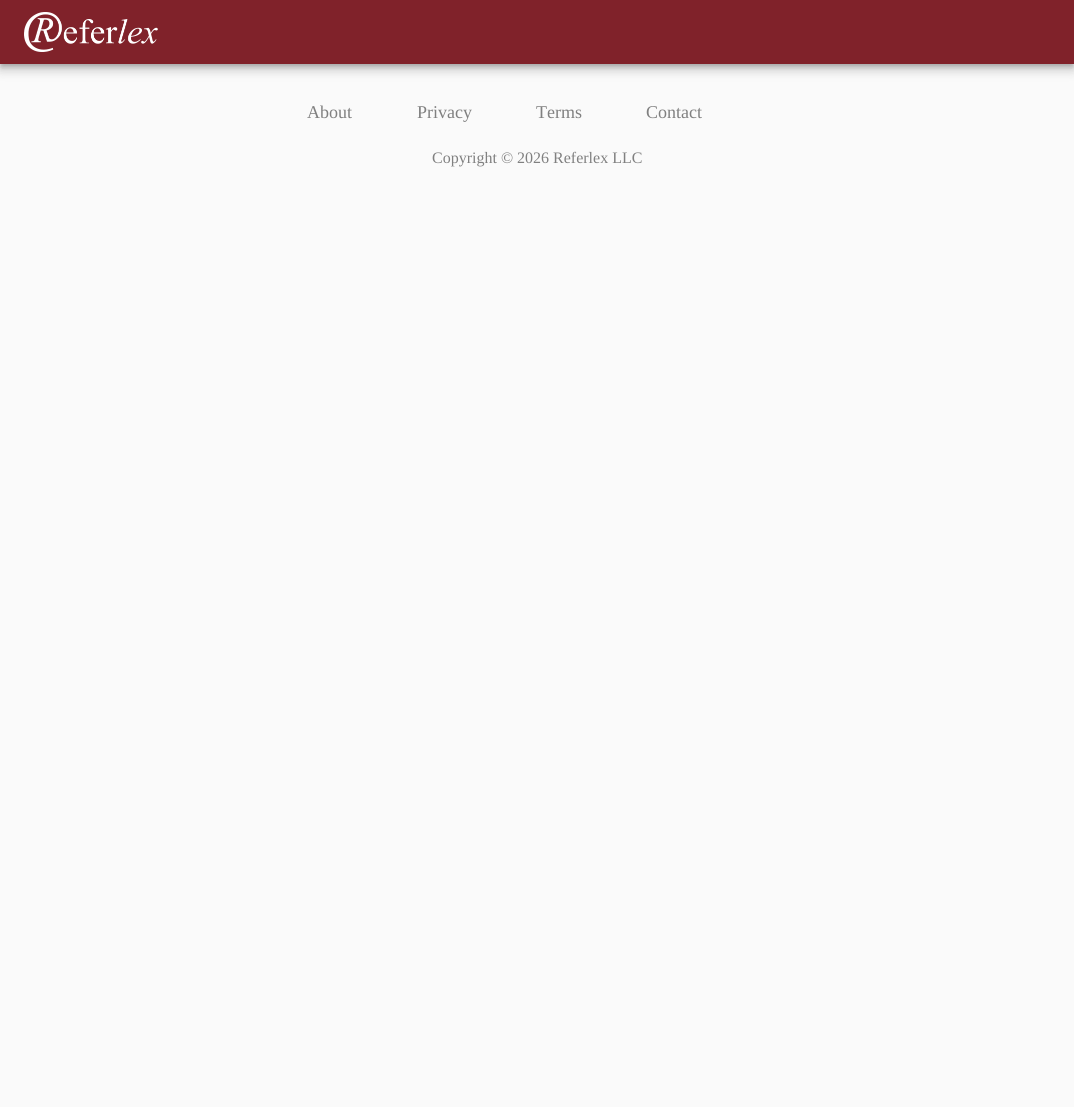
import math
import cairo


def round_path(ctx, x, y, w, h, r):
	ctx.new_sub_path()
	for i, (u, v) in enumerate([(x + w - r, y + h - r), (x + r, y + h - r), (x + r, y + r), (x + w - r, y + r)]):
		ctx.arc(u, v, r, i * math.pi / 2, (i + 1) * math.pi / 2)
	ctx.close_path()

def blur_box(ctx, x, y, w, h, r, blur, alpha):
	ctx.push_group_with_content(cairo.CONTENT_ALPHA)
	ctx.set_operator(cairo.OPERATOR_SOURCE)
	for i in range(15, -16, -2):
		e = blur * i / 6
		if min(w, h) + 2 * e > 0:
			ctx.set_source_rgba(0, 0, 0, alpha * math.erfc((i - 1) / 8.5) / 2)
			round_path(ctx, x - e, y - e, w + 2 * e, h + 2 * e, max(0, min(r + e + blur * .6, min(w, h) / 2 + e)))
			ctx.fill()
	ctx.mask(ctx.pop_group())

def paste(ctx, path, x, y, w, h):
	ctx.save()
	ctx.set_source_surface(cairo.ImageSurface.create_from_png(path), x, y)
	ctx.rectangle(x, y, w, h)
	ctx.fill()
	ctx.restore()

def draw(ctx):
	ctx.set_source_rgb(0.98, 0.98, 0.98)
	ctx.paint()
	ctx.set_source_rgb(0, 0, 0)
	blur_box(ctx, 0, 1, 1074, 64, 0, 9, 0.12)
	blur_box(ctx, 0, 6, 1074, 64, 0, 5, 0.14)
	blur_box(ctx, 1, 4, 1072, 62, 0, 2.5, 0.2)
	ctx.set_source_rgb(0.502, 0.133, 0.165)
	ctx.rectangle(0, 0, 1074, 64)
	ctx.fill()
	paste(ctx, 'media/1.png', 24, 12, 134, 40)
	ctx.select_font_face('Liberation Serif')
	ctx.set_font_size(18)
	ctx.set_source_rgb(0.502, 0.502, 0.502)
	for x, y, s in [
		(307, 118, 'About'),
		(417, 118, 'Privacy'),
		(536, 118, 'Terms'),
		(646, 118, 'Contact'),
	]:
		ctx.move_to(x, y)
		ctx.show_text(s)
	ctx.set_font_size(16)
	ctx.move_to(432, 163)
	ctx.show_text('Copyright © 2026 Referlex LLC')


surface = cairo.ImageSurface(cairo.FORMAT_RGB24, 1074, 1107)
ctx = cairo.Context(surface)
options = cairo.FontOptions()
options.set_hint_metrics(cairo.HINT_METRICS_OFF)
options.set_hint_style(cairo.HINT_STYLE_NONE)
ctx.set_font_options(options)
ctx.set_miter_limit(4)
draw(ctx)
surface.write_to_png('image.png')
